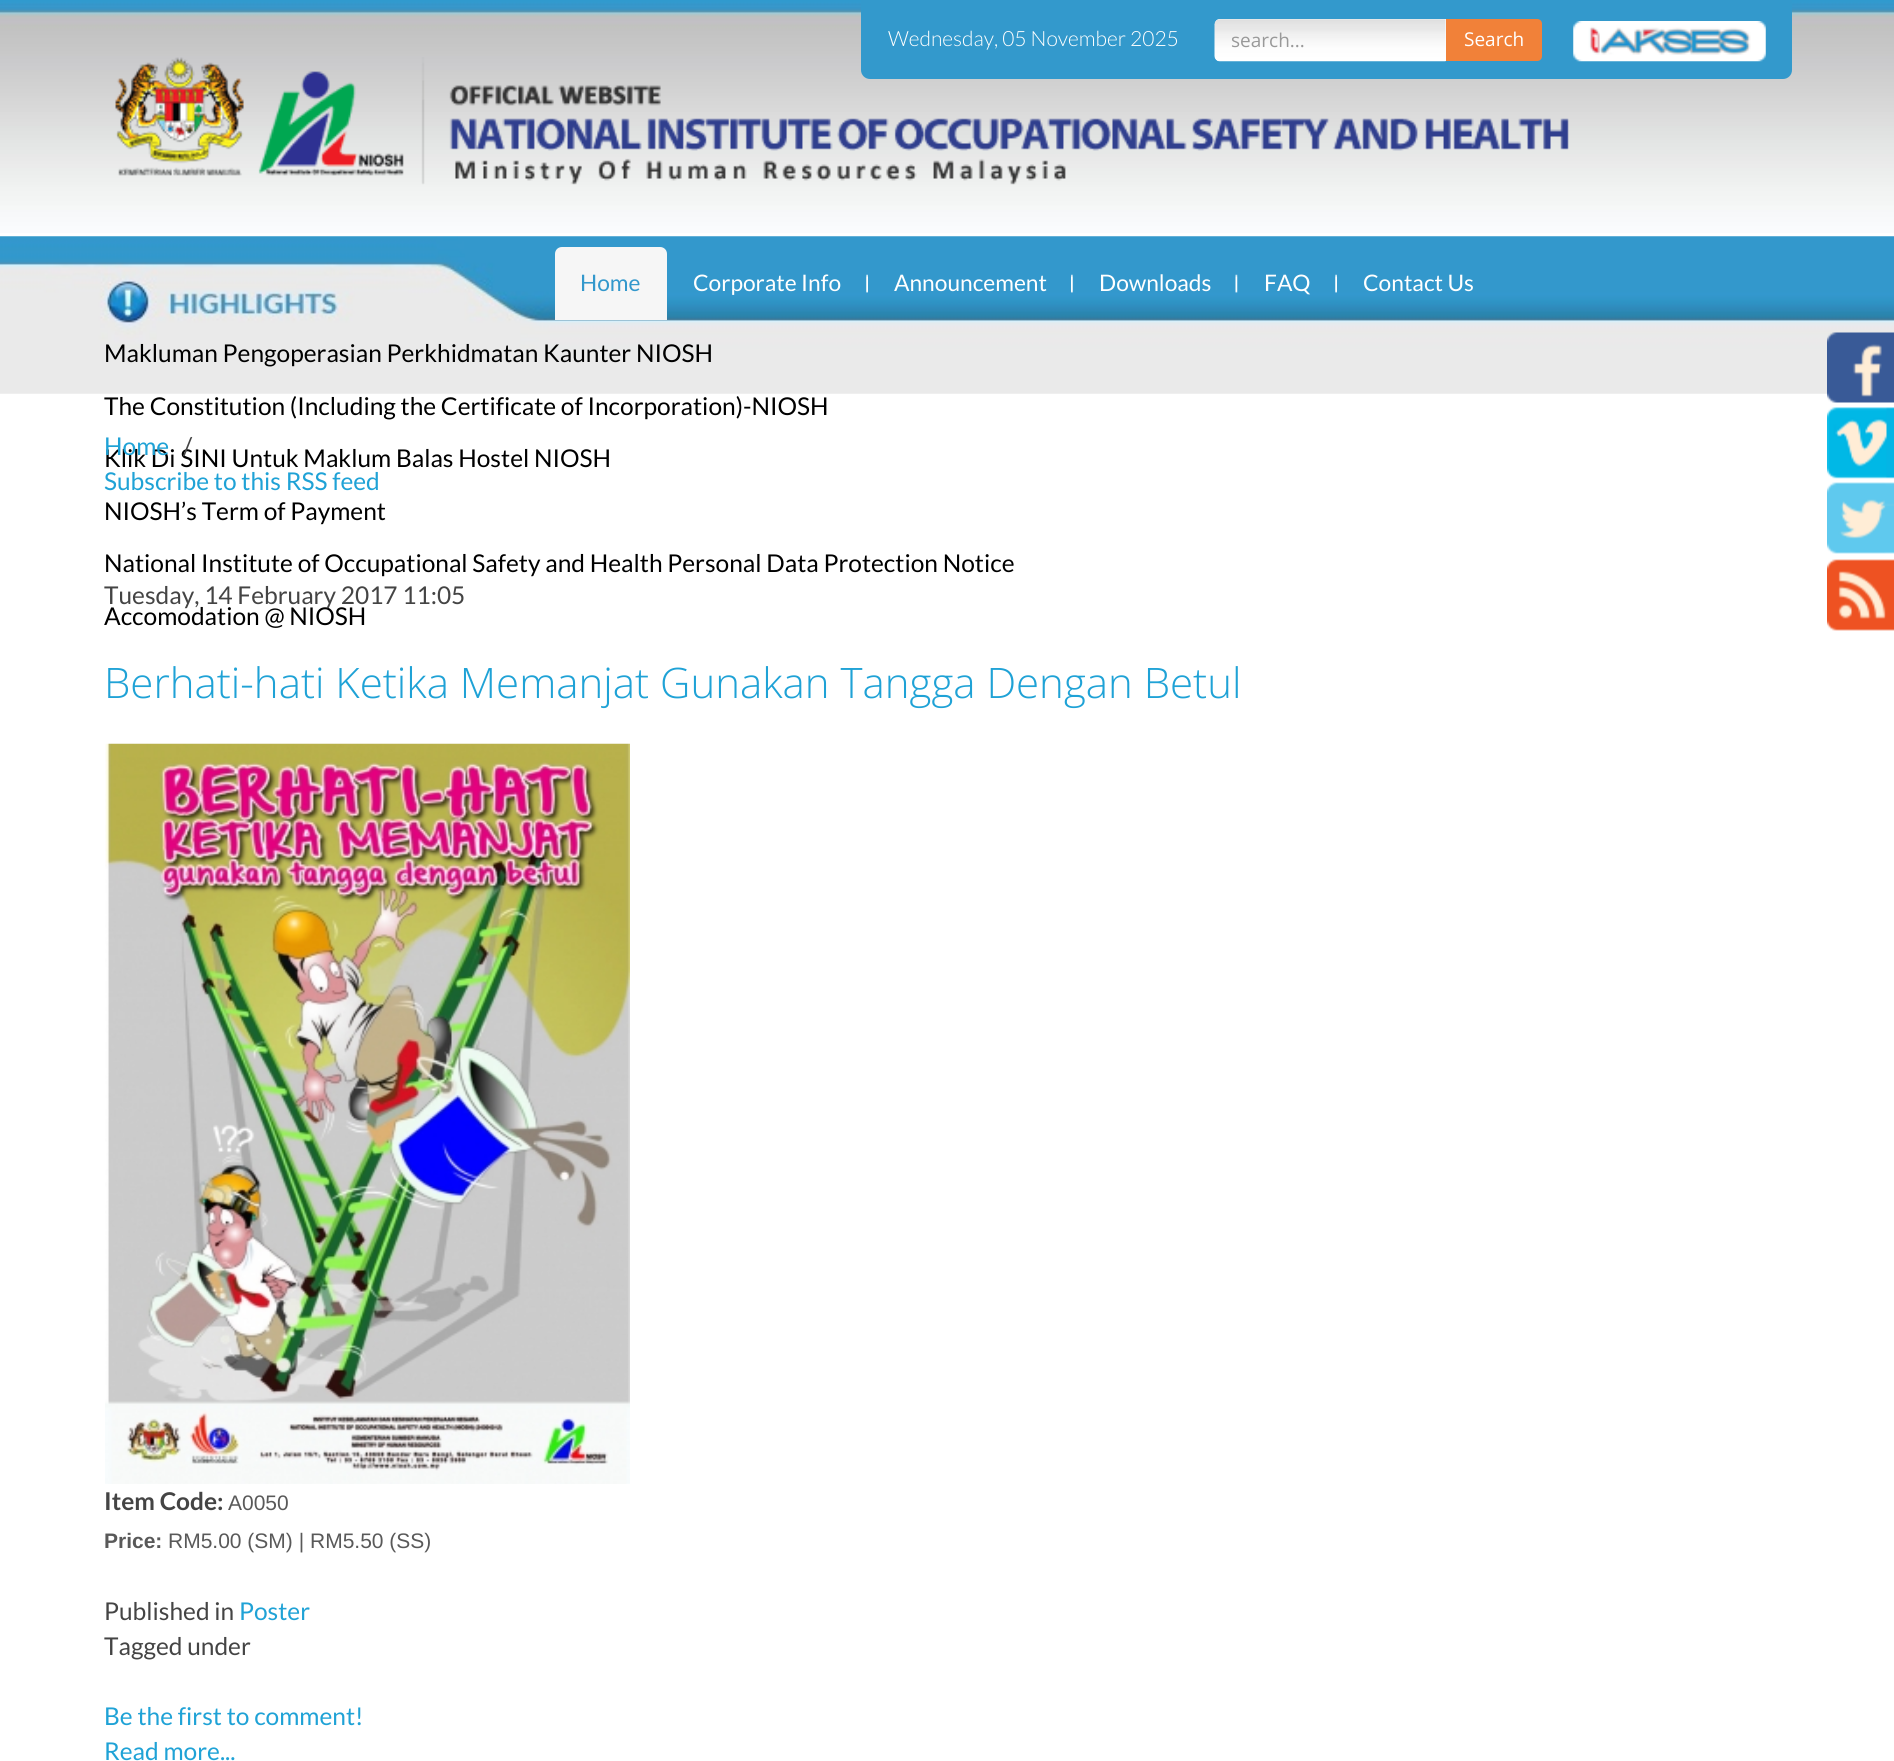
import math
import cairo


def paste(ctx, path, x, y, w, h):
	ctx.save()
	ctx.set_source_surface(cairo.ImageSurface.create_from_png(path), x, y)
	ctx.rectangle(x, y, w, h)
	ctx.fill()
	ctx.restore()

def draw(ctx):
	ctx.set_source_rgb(1, 1, 1)
	ctx.paint()
	paste(ctx, 'media/1.png', 0, 0, 1894, 233)
	paste(ctx, 'media/4.png', 115, 57, 1454, 128)
	ctx.set_source_rgb(0.2, 0.6, 0.8)
	ctx.new_path()
	ctx.move_to(861, -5)
	ctx.line_to(1792, -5)
	ctx.line_to(1792, 70)
	ctx.curve_to(1792, 75, 1788, 79, 1783, 79)
	ctx.line_to(870, 79)
	ctx.curve_to(865, 79, 861, 75, 861, 70)
	ctx.close_path()
	ctx.fill()
	ctx.select_font_face('Lato Light')
	ctx.set_font_size(21)
	ctx.set_source_rgb(1, 1, 1)
	ctx.move_to(888, 46)
	ctx.show_text('Wednesday, 05 November 2025')
	ctx.new_path()
	ctx.move_to(1220, 19)
	ctx.line_to(1446, 19)
	ctx.line_to(1446, 61)
	ctx.line_to(1220, 61)
	ctx.curve_to(1217, 61, 1215, 59, 1215, 56)
	ctx.line_to(1215, 24)
	ctx.curve_to(1215, 21, 1217, 19, 1220, 19)
	ctx.close_path()
	ctx.fill()
	paste(ctx, 'media/2.png', 1214, 19, 232, 43)
	ctx.select_font_face('Open Sans')
	ctx.set_font_size(19)
	ctx.set_source_rgb(0.6, 0.6, 0.6)
	ctx.move_to(1231, 47)
	ctx.show_text('search...')
	ctx.set_source_rgb(0.945, 0.506, 0.224)
	ctx.new_path()
	ctx.move_to(1446, 19)
	ctx.line_to(1537, 19)
	ctx.curve_to(1540, 19, 1542, 21, 1542, 24)
	ctx.line_to(1542, 56)
	ctx.curve_to(1542, 59, 1540, 61, 1537, 61)
	ctx.line_to(1446, 61)
	ctx.close_path()
	ctx.fill()
	ctx.set_source_rgb(1, 1, 1)
	ctx.move_to(1464, 46)
	ctx.show_text('Search')
	paste(ctx, 'media/3.png', 1573, 21, 193, 41)
	paste(ctx, 'media/5.png', 0, 236, 1894, 158)
	ctx.set_source_rgb(0.961, 0.961, 0.961)
	ctx.new_path()
	ctx.move_to(562, 247)
	ctx.line_to(660, 247)
	ctx.curve_to(664, 247, 667, 250, 667, 254)
	ctx.line_to(667, 320)
	ctx.line_to(555, 320)
	ctx.line_to(555, 254)
	ctx.curve_to(555, 250, 558, 247, 562, 247)
	ctx.close_path()
	ctx.fill()
	ctx.select_font_face('Lato')
	ctx.set_font_size(22.75)
	ctx.set_source_rgb(0.2, 0.596, 0.8)
	ctx.move_to(580, 291)
	ctx.show_text('Home')
	paste(ctx, 'media/6.png', 866, 274, 2, 19)
	ctx.set_source_rgb(1, 1, 1)
	ctx.move_to(693, 291)
	ctx.show_text('Corporate Info')
	paste(ctx, 'media/7.png', 1071, 274, 2, 19)
	ctx.move_to(894, 291)
	ctx.show_text('Announcement')
	paste(ctx, 'media/8.png', 1235, 274, 3, 19)
	ctx.move_to(1099, 291)
	ctx.show_text('Downloads')
	paste(ctx, 'media/6.png', 1335, 274, 2, 19)
	ctx.move_to(1264, 291)
	ctx.show_text('FAQ')
	ctx.move_to(1363, 291)
	ctx.show_text('Contact Us')
	ctx.set_font_size(24.5)
	ctx.set_source_rgb(0, 0, 0)
	for x, y, s in [
		(104, 362, 'Makluman Pengoperasian Perkhidmatan Kaunter NIOSH'),
		(104, 415, 'The Constitution (Including the Certificate of Incorporation)-NIOSH'),
		(104, 467, 'Klik Di SINI Untuk Maklum Balas Hostel NIOSH'),
		(104, 520, 'NIOSH’s Term of Payment'),
		(104, 572, 'National Institute of Occupational Safety and Health Personal Data Protection Notice'),
		(104, 625, 'Accomodation @ NIOSH'),
	]:
		ctx.move_to(x, y)
		ctx.show_text(s)
	paste(ctx, 'media/9.png', 1827, 332, 67, 71)
	paste(ctx, 'media/10.png', 1827, 407, 67, 72)
	paste(ctx, 'media/11.png', 1827, 482, 67, 72)
	paste(ctx, 'media/12.png', 1827, 559, 67, 72)
	ctx.set_source_rgb(0.122, 0.635, 0.839)
	ctx.move_to(104, 455)
	ctx.show_text('Home')
	ctx.set_source_rgb(0.267, 0.267, 0.267)
	ctx.move_to(183, 455)
	ctx.show_text('/')
	ctx.set_source_rgb(0.122, 0.635, 0.839)
	ctx.move_to(104, 490)
	ctx.show_text('Subscribe to this RSS feed')
	ctx.set_source_rgb(0.267, 0.267, 0.267)
	ctx.move_to(104, 604)
	ctx.show_text('Tuesday, 14 February 2017 11:05')
	ctx.select_font_face('Open Sans Light')
	ctx.set_font_size(42)
	ctx.set_source_rgb(0.122, 0.635, 0.839)
	ctx.move_to(104, 698)
	ctx.show_text('Berhati-hati Ketika Memanjat Gunakan Tangga Dengan Betul')
	paste(ctx, 'media/13.png', 105, 743, 525, 741)
	ctx.select_font_face('Lato', cairo.FONT_SLANT_NORMAL, cairo.FONT_WEIGHT_BOLD)
	ctx.set_font_size(24.5)
	ctx.set_source_rgb(0.267, 0.267, 0.267)
	ctx.move_to(104, 1510)
	ctx.show_text('Item Code:')
	ctx.select_font_face('Liberation Sans')
	ctx.set_font_size(21)
	ctx.set_source_rgb(0.349, 0.349, 0.349)
	ctx.move_to(228, 1510)
	ctx.show_text('A0050')
	ctx.select_font_face('Liberation Sans', cairo.FONT_SLANT_NORMAL, cairo.FONT_WEIGHT_BOLD)
	ctx.move_to(104, 1548)
	ctx.show_text('Price:')
	ctx.select_font_face('Liberation Sans')
	ctx.move_to(168, 1548)
	ctx.show_text('RM5.00 (SM) | RM5.50 (SS)')
	ctx.select_font_face('Lato')
	ctx.set_font_size(24.5)
	ctx.set_source_rgb(0.267, 0.267, 0.267)
	ctx.move_to(104, 1620)
	ctx.show_text('Published in')
	ctx.set_source_rgb(0.122, 0.635, 0.839)
	ctx.move_to(239, 1620)
	ctx.show_text('Poster')
	ctx.set_source_rgb(0.267, 0.267, 0.267)
	ctx.move_to(104, 1655)
	ctx.show_text('Tagged under')
	ctx.set_source_rgb(0.122, 0.635, 0.839)
	ctx.move_to(104, 1725)
	ctx.show_text('Be the first to comment!')
	ctx.move_to(104, 1760)
	ctx.show_text('Read more...')


surface = cairo.ImageSurface(cairo.FORMAT_RGB24, 1894, 1761)
ctx = cairo.Context(surface)
options = cairo.FontOptions()
options.set_hint_metrics(cairo.HINT_METRICS_OFF)
options.set_hint_style(cairo.HINT_STYLE_NONE)
ctx.set_font_options(options)
ctx.set_miter_limit(4)
draw(ctx)
surface.write_to_png('image.png')
